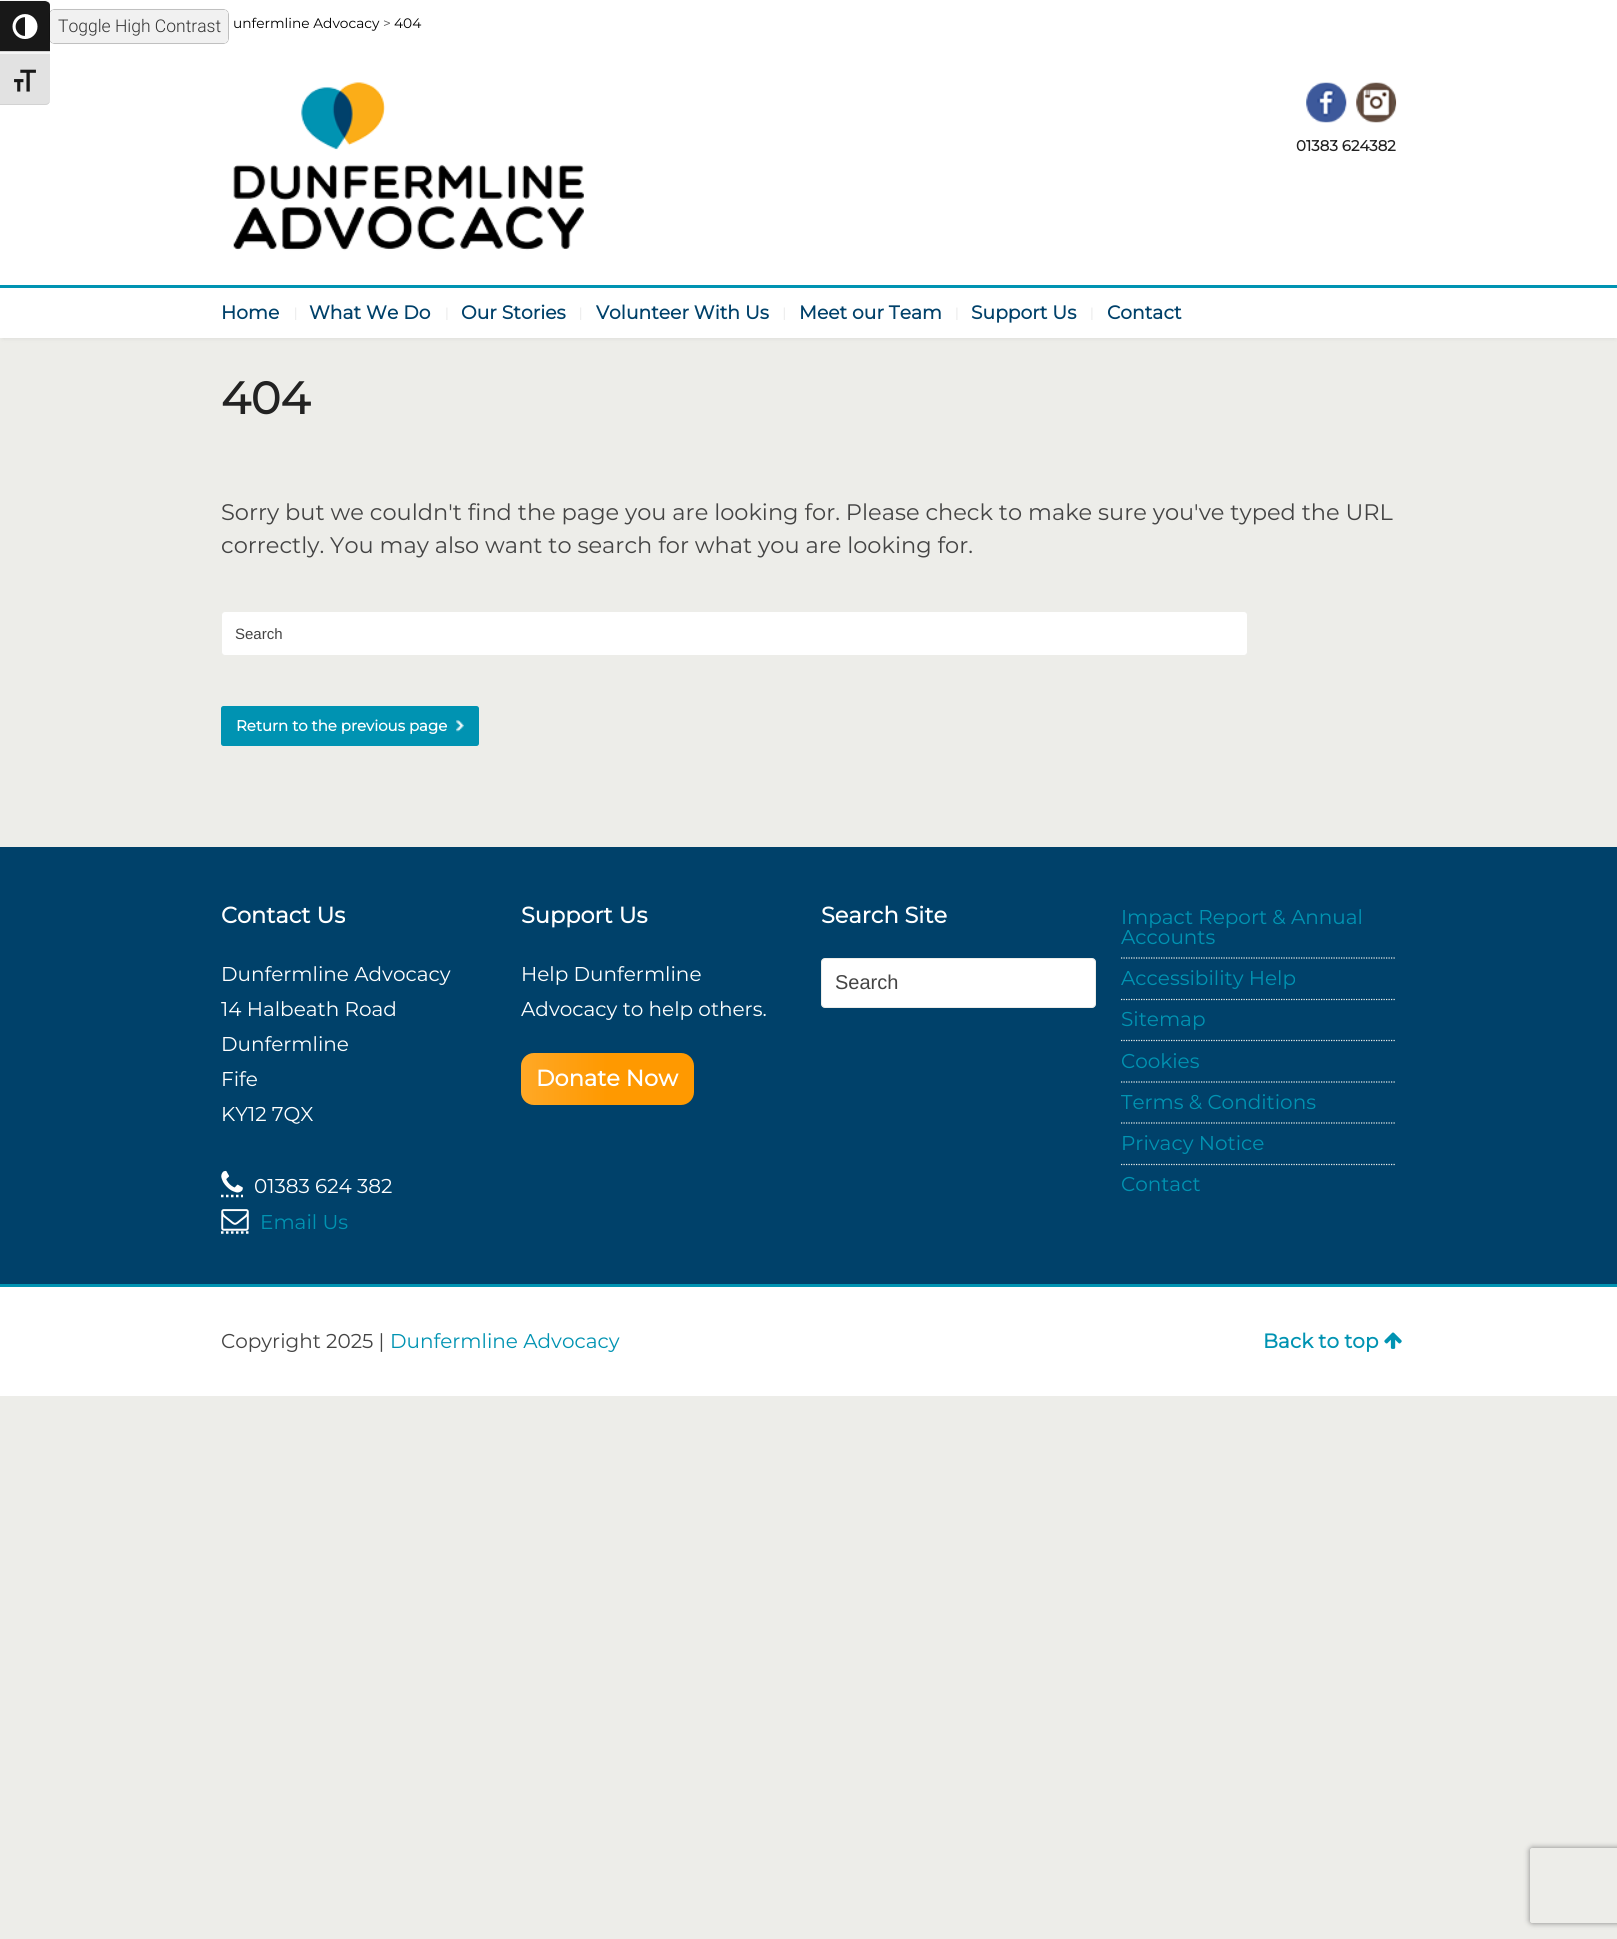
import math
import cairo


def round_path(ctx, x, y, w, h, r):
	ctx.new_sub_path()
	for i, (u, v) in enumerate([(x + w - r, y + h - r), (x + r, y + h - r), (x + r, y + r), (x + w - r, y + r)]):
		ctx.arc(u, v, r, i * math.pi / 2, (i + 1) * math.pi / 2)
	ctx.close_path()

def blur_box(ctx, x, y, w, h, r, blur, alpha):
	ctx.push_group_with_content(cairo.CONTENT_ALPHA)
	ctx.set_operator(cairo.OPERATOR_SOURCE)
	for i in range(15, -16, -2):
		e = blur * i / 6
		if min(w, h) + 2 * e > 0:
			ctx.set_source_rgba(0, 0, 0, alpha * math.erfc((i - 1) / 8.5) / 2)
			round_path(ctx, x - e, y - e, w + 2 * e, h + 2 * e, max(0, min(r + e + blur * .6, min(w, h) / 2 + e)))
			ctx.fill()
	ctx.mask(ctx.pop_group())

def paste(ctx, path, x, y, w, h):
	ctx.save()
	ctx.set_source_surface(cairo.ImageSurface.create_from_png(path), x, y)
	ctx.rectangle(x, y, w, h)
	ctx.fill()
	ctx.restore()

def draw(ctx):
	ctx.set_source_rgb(0.929, 0.929, 0.914)
	ctx.paint()
	ctx.set_source_rgb(1, 1, 1)
	ctx.rectangle(45, 0, 1572, 45)
	ctx.fill()
	ctx.rectangle(0, 45, 1617, 240)
	ctx.fill()
	ctx.set_source_rgb(0.094, 0.094, 0.094)
	ctx.new_path()
	ctx.move_to(0, 1)
	ctx.line_to(45, 1)
	ctx.curve_to(48, 1, 50, 3, 50, 5)
	ctx.line_to(50, 51)
	ctx.line_to(0, 51)
	ctx.close_path()
	ctx.fill()
	ctx.set_source_rgb(0.961, 0.961, 0.961)
	ctx.new_path()
	ctx.move_to(0, 0)
	ctx.line_to(0, 1)
	ctx.line_to(45, 1)
	ctx.curve_to(48, 1, 50, 3, 50, 5)
	ctx.curve_to(50, 2, 48, 0, 45, 0)
	ctx.close_path()
	ctx.fill()
	ctx.set_source_rgb(0.824, 0.824, 0.824)
	ctx.rectangle(0, 51, 50, 1)
	ctx.fill()
	paste(ctx, 'media/1.png', 12, 14, 26, 25)
	ctx.save()
	ctx.set_fill_rule(cairo.FILL_RULE_EVEN_ODD)
	ctx.new_path()
	ctx.move_to(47, 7)
	ctx.line_to(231, 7)
	ctx.line_to(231, 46)
	ctx.line_to(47, 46)
	ctx.close_path()
	ctx.move_to(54, 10)
	ctx.line_to(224, 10)
	ctx.curve_to(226, 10, 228, 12, 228, 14)
	ctx.line_to(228, 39)
	ctx.curve_to(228, 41, 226, 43, 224, 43)
	ctx.line_to(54, 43)
	ctx.curve_to(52, 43, 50, 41, 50, 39)
	ctx.line_to(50, 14)
	ctx.curve_to(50, 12, 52, 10, 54, 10)
	ctx.close_path()
	ctx.clip()
	ctx.set_source_rgb(0, 0, 0)
	blur_box(ctx, 50, 10, 178, 33, 4, 0.5, 1)
	ctx.restore()
	ctx.set_source_rgba(0.941, 0.941, 0.941, 0.93)
	round_path(ctx, 50, 10, 178, 33, 4)
	ctx.fill()
	ctx.select_font_face('Roboto Light')
	ctx.set_font_size(17.5)
	ctx.set_source_rgb(0.2, 0.2, 0.2)
	ctx.move_to(58, 32)
	ctx.show_text('Toggle High Contrast')
	ctx.set_source_rgb(0.886, 0.886, 0.886)
	ctx.new_path()
	ctx.move_to(0, 53)
	ctx.line_to(50, 53)
	ctx.line_to(50, 100)
	ctx.curve_to(50, 103, 48, 105, 45, 105)
	ctx.line_to(0, 105)
	ctx.close_path()
	ctx.fill()
	ctx.set_source_rgb(0.961, 0.961, 0.961)
	ctx.rectangle(0, 52, 50, 2)
	ctx.fill()
	ctx.set_source_rgb(0.824, 0.824, 0.824)
	ctx.new_path()
	ctx.move_to(0, 104)
	ctx.line_to(0, 105)
	ctx.line_to(45, 105)
	ctx.curve_to(48, 105, 50, 103, 50, 100)
	ctx.curve_to(50, 102, 48, 104, 45, 104)
	ctx.close_path()
	ctx.fill()
	paste(ctx, 'media/2.png', 14, 69, 22, 23)
	ctx.select_font_face('Montserrat Thin')
	ctx.set_font_size(13.75)
	ctx.set_source_rgb(0, 0, 0)
	ctx.move_to(233, 28)
	ctx.show_text('unfermline Advocacy')
	ctx.set_source_rgb(0.337, 0.337, 0.337)
	ctx.move_to(383, 28)
	ctx.show_text('>')
	ctx.set_source_rgb(0, 0, 0)
	ctx.move_to(394, 28)
	ctx.show_text('404')
	paste(ctx, 'media/3.png', 233, 82, 351, 169)
	paste(ctx, 'media/4.png', 1306, 82, 41, 41)
	paste(ctx, 'media/5.png', 1356, 82, 41, 41)
	ctx.select_font_face('Montserrat', cairo.FONT_SLANT_NORMAL, cairo.FONT_WEIGHT_BOLD)
	ctx.set_font_size(15)
	ctx.set_source_rgb(0.133, 0.133, 0.133)
	ctx.move_to(1296, 151)
	ctx.show_text('01383 624382')
	ctx.set_source_rgb(0, 0, 0)
	blur_box(ctx, 3, 290, 1612, 48, 0, 2.5, 0.1)
	ctx.set_source_rgb(1, 1, 1)
	ctx.rectangle(0, 288, 1617, 50)
	ctx.fill()
	ctx.set_source_rgb(0, 0.576, 0.698)
	ctx.rectangle(0, 285, 1617, 3)
	ctx.fill()
	ctx.set_font_size(18.75)
	ctx.set_source_rgb(0, 0.255, 0.416)
	ctx.move_to(221, 319)
	ctx.show_text('Home')
	paste(ctx, 'media/6.png', 295, 307, 2, 13)
	ctx.move_to(309, 319)
	ctx.show_text('What We Do')
	paste(ctx, 'media/7.png', 446, 307, 2, 13)
	ctx.move_to(461, 319)
	ctx.show_text('Our Stories')
	paste(ctx, 'media/6.png', 580, 307, 2, 13)
	ctx.move_to(596, 319)
	ctx.show_text('Volunteer With Us')
	paste(ctx, 'media/8.png', 783, 307, 2, 13)
	ctx.move_to(799, 319)
	ctx.show_text('Meet our Team')
	paste(ctx, 'media/7.png', 956, 307, 2, 13)
	ctx.move_to(971, 319)
	ctx.show_text('Support Us')
	paste(ctx, 'media/7.png', 1091, 307, 2, 13)
	ctx.move_to(1107, 319)
	ctx.show_text('Contact')
	ctx.set_font_size(45)
	ctx.set_source_rgb(0.133, 0.133, 0.133)
	ctx.move_to(221, 414)
	ctx.show_text('404')
	ctx.select_font_face('Montserrat Thin')
	ctx.set_font_size(22.5)
	ctx.set_source_rgb(0.267, 0.267, 0.267)
	ctx.move_to(221, 520)
	ctx.show_text('Sorry but we couldn\'t find the page you are looking for. Please check to make sure you\'ve typed the URL')
	ctx.move_to(221, 553)
	ctx.show_text('correctly. You may also want to search for what you are looking for.')
	ctx.set_source_rgb(1, 1, 1)
	round_path(ctx, 221.5, 611.5, 1026, 44, 3.5)
	ctx.fill_preserve()
	ctx.set_source_rgb(0.929, 0.929, 0.914)
	ctx.set_line_width(1)
	ctx.stroke()
	ctx.select_font_face('Liberation Sans')
	ctx.set_font_size(15)
	ctx.set_source_rgb(0.267, 0.267, 0.267)
	ctx.move_to(235, 639)
	ctx.show_text('Search')
	ctx.set_source_rgb(0, 0.576, 0.698)
	round_path(ctx, 221, 706, 258, 40, 2.5)
	ctx.fill()
	ctx.select_font_face('Montserrat', cairo.FONT_SLANT_NORMAL, cairo.FONT_WEIGHT_BOLD)
	ctx.set_source_rgb(1, 1, 1)
	ctx.move_to(236, 731)
	ctx.show_text('Return to the previous page')
	paste(ctx, 'media/9.png', 456, 720, 8, 12)
	ctx.set_source_rgb(0, 0.255, 0.416)
	ctx.rectangle(0, 847, 1617, 437)
	ctx.fill()
	ctx.set_font_size(22.5)
	ctx.set_source_rgb(1, 1, 1)
	ctx.move_to(221, 923)
	ctx.show_text('Contact Us')
	ctx.select_font_face('Montserrat Thin')
	ctx.set_font_size(20)
	for x, y, s in [
		(221, 981, 'Dunfermline Advocacy'),
		(221, 1016, '14 Halbeath Road'),
		(221, 1051, 'Dunfermline'),
		(221, 1086, 'Fife'),
		(221, 1121, 'KY12 7QX'),
	]:
		ctx.move_to(x, y)
		ctx.show_text(s)
	ctx.new_path()
	ctx.move_to(221, 1196)
	ctx.line_to(243, 1196)
	ctx.set_line_width(2.5)
	ctx.set_dash([2.5, 2.5])
	ctx.stroke()
	paste(ctx, 'media/10.png', 221, 1170, 22, 23)
	ctx.move_to(254, 1193)
	ctx.show_text('01383 624 382')
	ctx.new_path()
	ctx.move_to(221, 1232.5)
	ctx.line_to(249, 1232.5)
	ctx.stroke()
	paste(ctx, 'media/11.png', 221, 1209, 28, 22)
	ctx.set_source_rgb(0, 0.576, 0.698)
	ctx.move_to(260, 1229)
	ctx.show_text('Email Us')
	ctx.select_font_face('Montserrat', cairo.FONT_SLANT_NORMAL, cairo.FONT_WEIGHT_BOLD)
	ctx.set_font_size(22.5)
	ctx.set_source_rgb(1, 1, 1)
	ctx.move_to(521, 923)
	ctx.show_text('Support Us')
	ctx.select_font_face('Montserrat Thin')
	ctx.set_font_size(20)
	ctx.move_to(521, 981)
	ctx.show_text('Help Dunfermline')
	ctx.move_to(521, 1016)
	ctx.show_text('Advocacy to help others.')
	ctx.set_source_rgb(1, 0.6, 0)
	round_path(ctx, 521, 1053, 173, 52, 13)
	ctx.fill()
	gradient = cairo.LinearGradient(521, 1079, 694, 1079)
	gradient.add_color_stop_rgba(0, 1, 1, 1, 0.15)
	gradient.add_color_stop_rgba(0.5, 1, 1, 1, 0)
	gradient.add_color_stop_rgba(0.5, 0.969, 0.969, 0.969, 0)
	ctx.set_source(gradient)
	round_path(ctx, 521, 1053, 173, 52, 13)
	ctx.fill()
	ctx.select_font_face('Montserrat', cairo.FONT_SLANT_NORMAL, cairo.FONT_WEIGHT_BOLD)
	ctx.set_font_size(22.5)
	ctx.set_source_rgb(1, 1, 1)
	ctx.move_to(536, 1086)
	ctx.show_text('Donate Now')
	ctx.move_to(821, 923)
	ctx.show_text('Search Site')
	round_path(ctx, 821.5, 958.5, 274, 49, 3.5)
	ctx.fill_preserve()
	ctx.set_source_rgb(0.929, 0.929, 0.914)
	ctx.set_line_width(1)
	ctx.set_dash([])
	ctx.stroke()
	ctx.select_font_face('Liberation Sans')
	ctx.set_font_size(20)
	ctx.set_source_rgb(0.267, 0.267, 0.267)
	ctx.move_to(835, 989)
	ctx.show_text('Search')
	ctx.select_font_face('Montserrat Thin')
	ctx.set_source_rgb(0, 0.576, 0.698)
	ctx.move_to(1121, 924)
	ctx.show_text('Impact Report & Annual')
	ctx.move_to(1121, 944)
	ctx.show_text('Accounts')
	ctx.new_path()
	ctx.move_to(1121, 958)
	ctx.line_to(1396, 958)
	ctx.set_source_rgb(0.929, 0.929, 0.914)
	ctx.set_line_width(1.2)
	ctx.set_dash([1.25, 1.25])
	ctx.stroke()
	ctx.set_source_rgb(0, 0.576, 0.698)
	ctx.move_to(1121, 985)
	ctx.show_text('Accessibility Help')
	ctx.new_path()
	ctx.move_to(1121, 999.5)
	ctx.line_to(1396, 999.5)
	ctx.set_source_rgb(0.929, 0.929, 0.914)
	ctx.stroke()
	ctx.set_source_rgb(0, 0.576, 0.698)
	ctx.move_to(1121, 1026)
	ctx.show_text('Sitemap')
	ctx.new_path()
	ctx.move_to(1121, 1040.5)
	ctx.line_to(1396, 1040.5)
	ctx.set_source_rgb(0.929, 0.929, 0.914)
	ctx.stroke()
	ctx.set_source_rgb(0, 0.576, 0.698)
	ctx.move_to(1121, 1068)
	ctx.show_text('Cookies')
	ctx.new_path()
	ctx.move_to(1121, 1082)
	ctx.line_to(1396, 1082)
	ctx.set_source_rgb(0.929, 0.929, 0.914)
	ctx.stroke()
	ctx.set_source_rgb(0, 0.576, 0.698)
	ctx.move_to(1121, 1109)
	ctx.show_text('Terms & Conditions')
	ctx.new_path()
	ctx.move_to(1121, 1123)
	ctx.line_to(1396, 1123)
	ctx.set_source_rgb(0.929, 0.929, 0.914)
	ctx.stroke()
	ctx.set_source_rgb(0, 0.576, 0.698)
	ctx.move_to(1121, 1150)
	ctx.show_text('Privacy Notice')
	ctx.new_path()
	ctx.move_to(1121, 1164.5)
	ctx.line_to(1396, 1164.5)
	ctx.set_source_rgb(0.929, 0.929, 0.914)
	ctx.stroke()
	ctx.set_source_rgb(0, 0.576, 0.698)
	ctx.move_to(1121, 1191)
	ctx.show_text('Contact')
	ctx.set_source_rgb(1, 1, 1)
	ctx.rectangle(0, 1287, 1617, 109)
	ctx.fill()
	ctx.set_source_rgb(0, 0.576, 0.698)
	ctx.rectangle(0, 1284, 1617, 3)
	ctx.fill()
	ctx.set_source_rgb(0.267, 0.267, 0.267)
	ctx.move_to(221, 1348)
	ctx.show_text('Copyright 2025 |')
	ctx.set_source_rgb(0, 0.576, 0.698)
	ctx.move_to(390, 1348)
	ctx.show_text('Dunfermline Advocacy')
	ctx.select_font_face('Montserrat', cairo.FONT_SLANT_NORMAL, cairo.FONT_WEIGHT_BOLD)
	ctx.move_to(1263, 1348)
	ctx.show_text('Back to top')
	paste(ctx, 'media/12.png', 1384, 1332, 18, 17)
	ctx.save()
	ctx.set_fill_rule(cairo.FILL_RULE_EVEN_ODD)
	ctx.new_path()
	ctx.move_to(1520, 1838)
	ctx.line_to(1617, 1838)
	ctx.line_to(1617, 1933)
	ctx.line_to(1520, 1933)
	ctx.close_path()
	ctx.move_to(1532.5, 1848)
	ctx.line_to(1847.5, 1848)
	ctx.curve_to(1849, 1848, 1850, 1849, 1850, 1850.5)
	ctx.line_to(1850, 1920.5)
	ctx.curve_to(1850, 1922, 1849, 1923, 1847.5, 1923)
	ctx.line_to(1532.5, 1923)
	ctx.curve_to(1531, 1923, 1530, 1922, 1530, 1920.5)
	ctx.line_to(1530, 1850.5)
	ctx.curve_to(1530, 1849, 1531, 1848, 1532.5, 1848)
	ctx.close_path()
	ctx.clip()
	ctx.set_source_rgb(0.502, 0.502, 0.502)
	blur_box(ctx, 1530, 1848, 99, 75, 2.5, 3, 1)
	ctx.restore()


surface = cairo.ImageSurface(cairo.FORMAT_RGB24, 1617, 1939)
ctx = cairo.Context(surface)
options = cairo.FontOptions()
options.set_hint_metrics(cairo.HINT_METRICS_OFF)
options.set_hint_style(cairo.HINT_STYLE_NONE)
ctx.set_font_options(options)
ctx.set_miter_limit(4)
draw(ctx)
surface.write_to_png('image.png')
